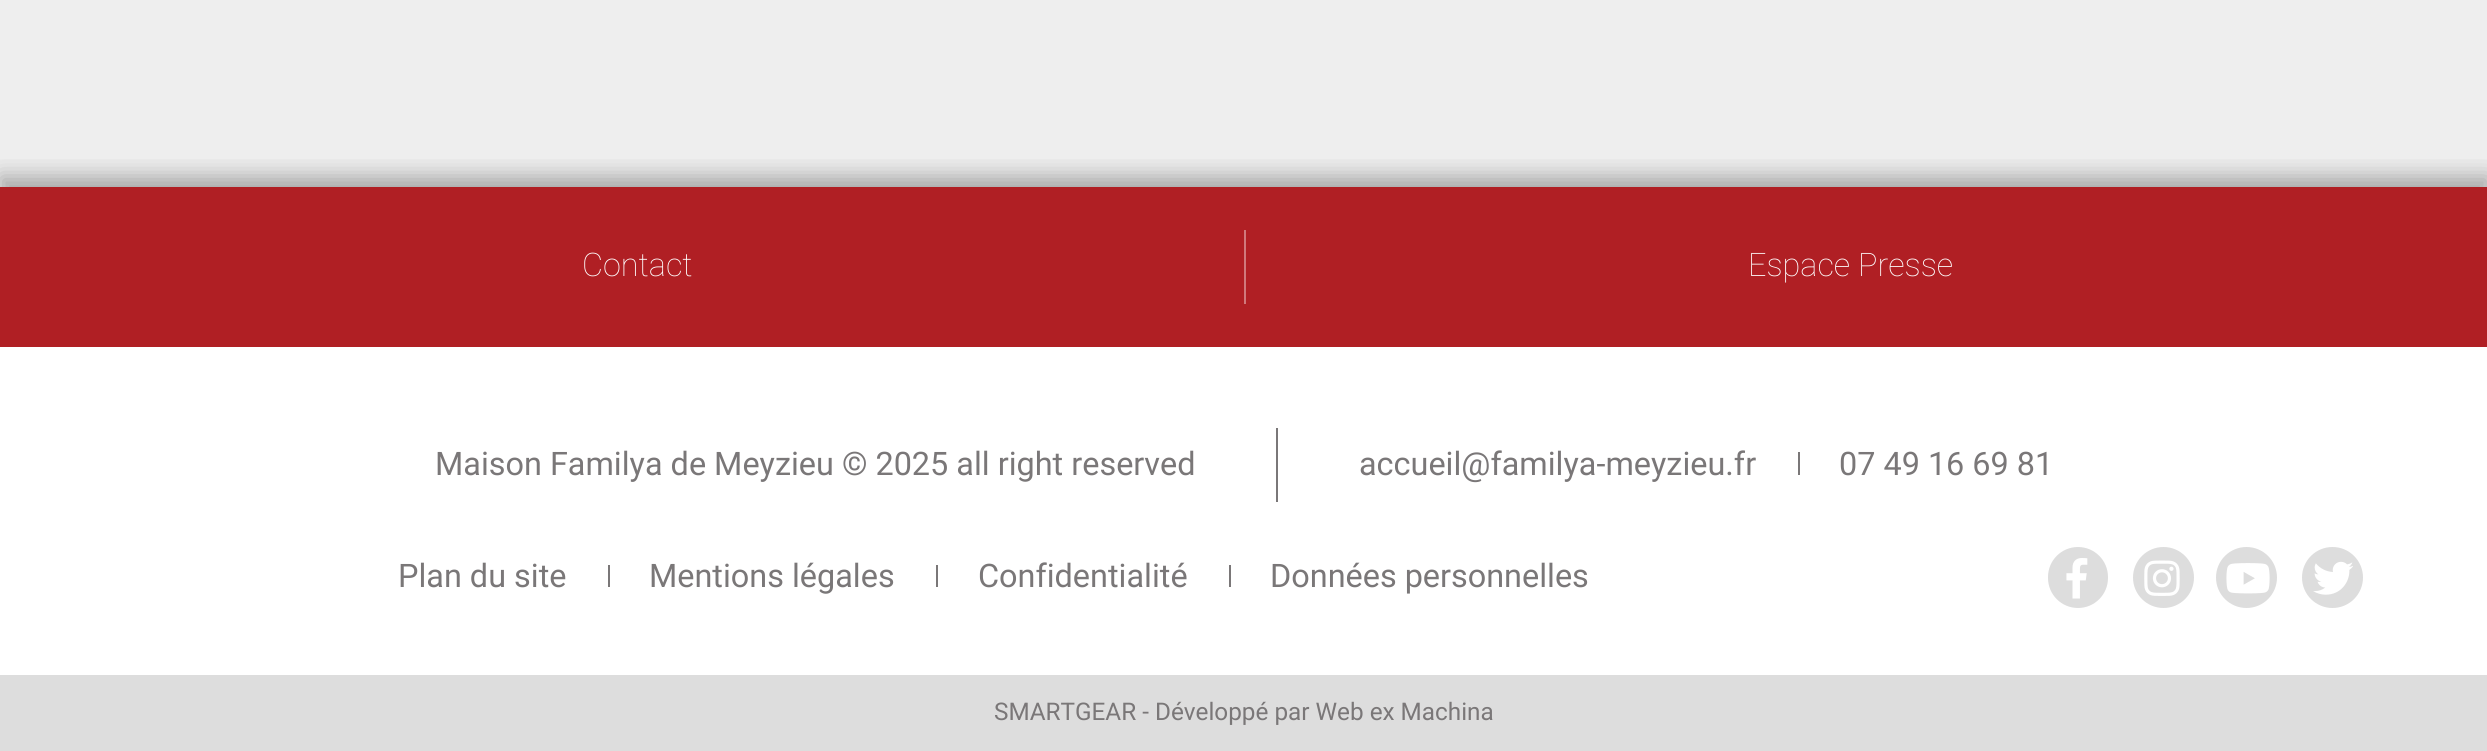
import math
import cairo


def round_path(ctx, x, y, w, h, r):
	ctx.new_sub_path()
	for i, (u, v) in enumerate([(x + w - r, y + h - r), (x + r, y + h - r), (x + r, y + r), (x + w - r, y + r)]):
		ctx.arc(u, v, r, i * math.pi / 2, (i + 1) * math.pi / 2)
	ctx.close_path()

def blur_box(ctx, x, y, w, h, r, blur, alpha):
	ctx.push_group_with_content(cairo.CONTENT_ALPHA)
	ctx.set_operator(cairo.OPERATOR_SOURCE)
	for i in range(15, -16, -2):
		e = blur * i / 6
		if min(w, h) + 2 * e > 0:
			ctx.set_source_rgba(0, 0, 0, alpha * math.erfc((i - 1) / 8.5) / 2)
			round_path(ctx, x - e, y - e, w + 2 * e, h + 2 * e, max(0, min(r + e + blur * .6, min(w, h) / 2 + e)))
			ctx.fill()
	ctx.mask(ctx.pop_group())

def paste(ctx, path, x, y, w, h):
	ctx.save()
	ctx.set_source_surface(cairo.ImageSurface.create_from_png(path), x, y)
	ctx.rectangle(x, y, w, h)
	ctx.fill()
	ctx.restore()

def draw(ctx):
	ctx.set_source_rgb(1, 1, 1)
	ctx.paint()
	ctx.set_source_rgb(0.933, 0.933, 0.933)
	ctx.rectangle(0, 0, 2487, 187)
	ctx.fill()
	ctx.save()
	ctx.rectangle(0, 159, 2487, 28)
	ctx.clip()
	ctx.set_source_rgb(0, 0, 0)
	blur_box(ctx, 0, 176, 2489, 564, 0, 11, 0.3)
	ctx.restore()
	ctx.set_source_rgb(0.69, 0.122, 0.141)
	ctx.rectangle(0, 187, 2487, 160)
	ctx.fill()
	ctx.select_font_face('Roboto Thin')
	ctx.set_font_size(32.4)
	ctx.set_source_rgb(1, 1, 1)
	ctx.move_to(582, 276)
	ctx.show_text('Contact')
	ctx.set_source_rgb(0.816, 0.475, 0.486)
	ctx.rectangle(1244, 230, 2, 74)
	ctx.fill()
	ctx.set_source_rgb(1, 1, 1)
	ctx.move_to(1748, 276)
	ctx.show_text('Espace Presse')
	ctx.set_source_rgb(0.478, 0.467, 0.471)
	ctx.rectangle(1276, 428, 2, 74)
	ctx.fill()
	ctx.select_font_face('Roboto')
	ctx.move_to(435, 475)
	ctx.show_text('Maison Familya de Meyzieu © 2025 all right reserved')
	ctx.move_to(1359, 475)
	ctx.show_text('accueil@familya-meyzieu.fr')
	ctx.rectangle(1798, 452, 2, 23)
	ctx.fill()
	ctx.move_to(1839, 475)
	ctx.show_text('07 49 16 69 81')
	ctx.move_to(398, 587)
	ctx.show_text('Plan du site')
	ctx.rectangle(608, 565, 2, 22)
	ctx.fill()
	ctx.move_to(649, 587)
	ctx.show_text('Mentions légales')
	ctx.rectangle(936, 565, 2, 22)
	ctx.fill()
	ctx.move_to(978, 587)
	ctx.show_text('Confidentialité')
	ctx.rectangle(1229, 565, 2, 22)
	ctx.fill()
	ctx.move_to(1270, 587)
	ctx.show_text('Données personnelles')
	ctx.set_source_rgb(0.867, 0.867, 0.867)
	round_path(ctx, 2048, 547, 60, 61, 30)
	ctx.fill()
	paste(ctx, 'media/1.png', 2066, 558, 22, 41)
	ctx.arc(2163.5, 577.5, 30.5, 0, 2 * math.pi)
	ctx.fill()
	paste(ctx, 'media/2.png', 2144, 560, 36, 36)
	ctx.arc(2246.5, 577.5, 30.5, 0, 2 * math.pi)
	ctx.fill()
	paste(ctx, 'media/3.png', 2226, 563, 44, 31)
	ctx.arc(2332.5, 577.5, 30.5, 0, 2 * math.pi)
	ctx.fill()
	paste(ctx, 'media/4.png', 2313, 561, 40, 34)
	ctx.rectangle(0, 675, 2487, 76)
	ctx.fill()
	ctx.set_font_size(24.3)
	ctx.set_source_rgb(0.478, 0.467, 0.471)
	ctx.move_to(994, 720)
	ctx.show_text('SMARTGEAR - Développé par Web ex Machina')


surface = cairo.ImageSurface(cairo.FORMAT_RGB24, 2487, 751)
ctx = cairo.Context(surface)
options = cairo.FontOptions()
options.set_hint_metrics(cairo.HINT_METRICS_OFF)
options.set_hint_style(cairo.HINT_STYLE_NONE)
ctx.set_font_options(options)
ctx.set_miter_limit(4)
draw(ctx)
surface.write_to_png('image.png')
